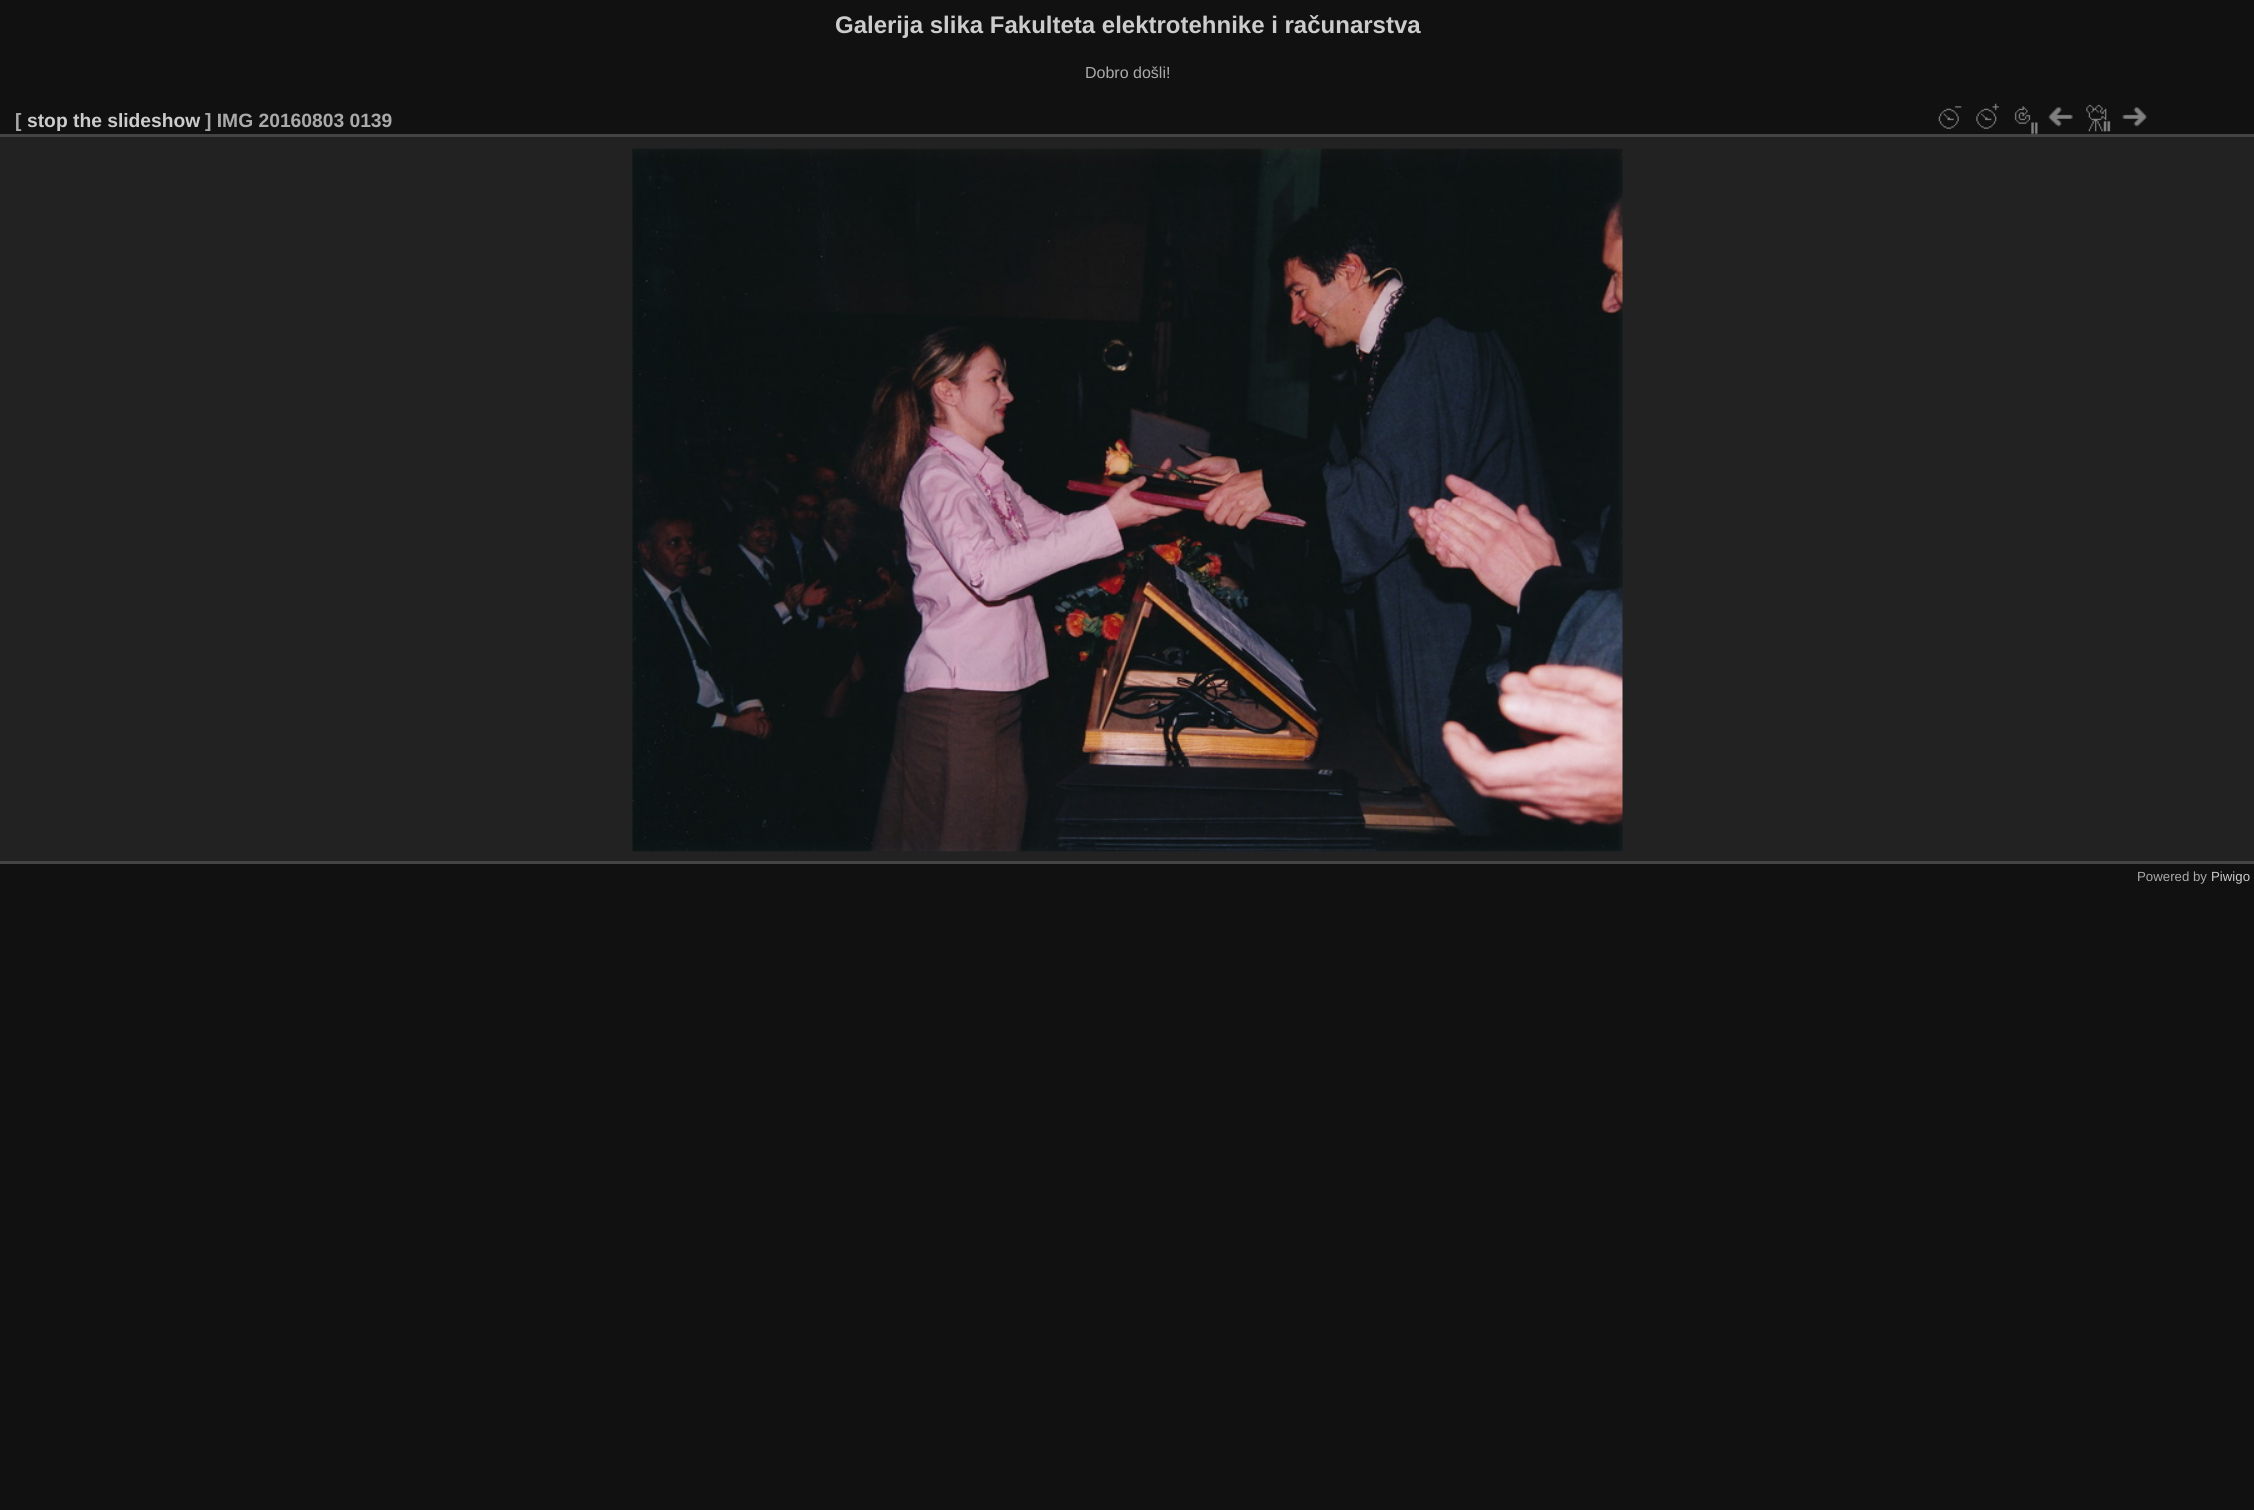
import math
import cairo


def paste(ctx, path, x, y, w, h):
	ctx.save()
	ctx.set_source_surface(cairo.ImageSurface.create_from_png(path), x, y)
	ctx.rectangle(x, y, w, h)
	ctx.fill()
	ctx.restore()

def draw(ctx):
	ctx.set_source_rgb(0.067, 0.067, 0.067)
	ctx.paint()
	ctx.select_font_face('Liberation Sans', cairo.FONT_SLANT_NORMAL, cairo.FONT_WEIGHT_BOLD)
	ctx.set_font_size(24)
	ctx.set_source_rgb(0.8, 0.8, 0.8)
	ctx.move_to(835, 33)
	ctx.show_text('Galerija slika Fakulteta elektrotehnike i računarstva')
	ctx.select_font_face('Liberation Sans')
	ctx.set_font_size(16)
	ctx.set_source_rgb(0.667, 0.667, 0.667)
	ctx.move_to(1085, 78)
	ctx.show_text('Dobro došli!')
	ctx.set_source_rgb(0.267, 0.267, 0.267)
	ctx.rectangle(0, 134, 2254, 3)
	ctx.fill()
	ctx.select_font_face('Liberation Sans', cairo.FONT_SLANT_NORMAL, cairo.FONT_WEIGHT_BOLD)
	ctx.set_font_size(19.25)
	ctx.set_source_rgb(0.667, 0.667, 0.667)
	ctx.move_to(15, 127)
	ctx.show_text('[')
	ctx.set_source_rgb(0.8, 0.8, 0.8)
	ctx.move_to(27, 127)
	ctx.show_text('stop the slideshow')
	ctx.set_source_rgb(0.667, 0.667, 0.667)
	ctx.move_to(205, 127)
	ctx.show_text('] IMG 20160803 0139')
	paste(ctx, 'media/1.png', 1938, 106, 24, 23)
	paste(ctx, 'media/2.png', 1976, 103, 23, 26)
	paste(ctx, 'media/3.png', 2014, 106, 24, 28)
	paste(ctx, 'media/4.png', 2048, 107, 25, 20)
	paste(ctx, 'media/5.png', 2086, 104, 25, 28)
	paste(ctx, 'media/6.png', 2122, 107, 25, 20)
	ctx.set_source_rgb(0.133, 0.133, 0.133)
	ctx.rectangle(0, 137, 2254, 724)
	ctx.fill()
	ctx.set_source_rgb(0.267, 0.267, 0.267)
	ctx.rectangle(0, 861, 2254, 3)
	ctx.fill()
	paste(ctx, 'media/7.png', 632, 148, 991, 704)
	ctx.select_font_face('Liberation Sans')
	ctx.set_font_size(13.25)
	ctx.set_source_rgb(0.667, 0.667, 0.667)
	ctx.move_to(2137, 881)
	ctx.show_text('Powered by')
	ctx.set_source_rgb(0.8, 0.8, 0.8)
	ctx.move_to(2211, 881)
	ctx.show_text('Piwigo')


surface = cairo.ImageSurface(cairo.FORMAT_RGB24, 2254, 1510)
ctx = cairo.Context(surface)
options = cairo.FontOptions()
options.set_hint_metrics(cairo.HINT_METRICS_OFF)
options.set_hint_style(cairo.HINT_STYLE_NONE)
ctx.set_font_options(options)
ctx.set_miter_limit(4)
draw(ctx)
surface.write_to_png('image.png')
